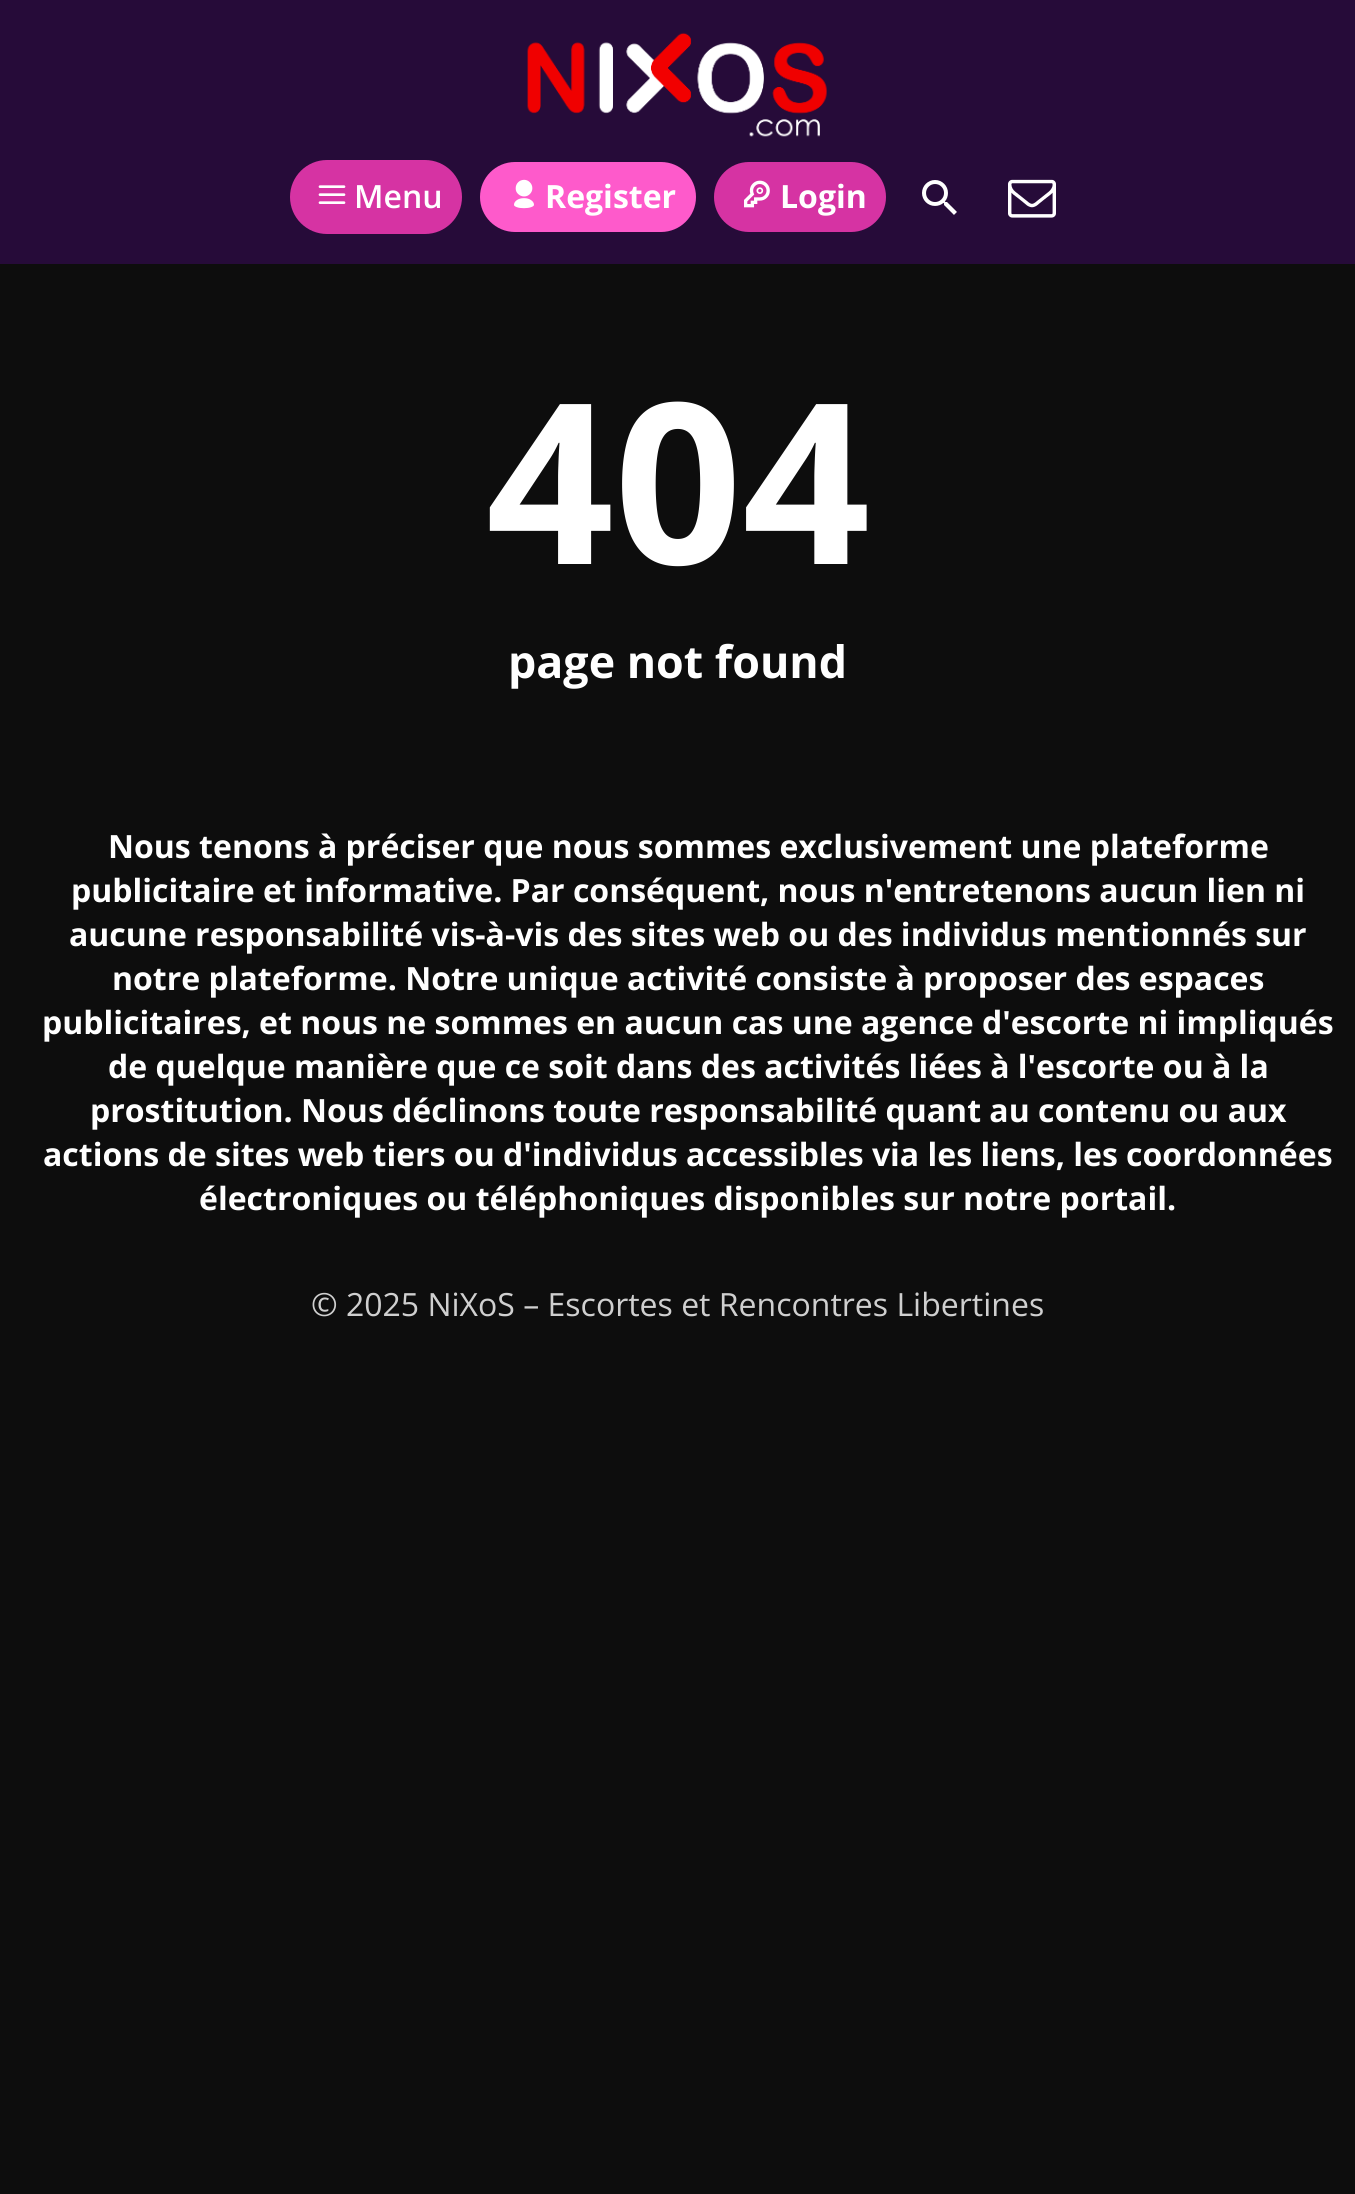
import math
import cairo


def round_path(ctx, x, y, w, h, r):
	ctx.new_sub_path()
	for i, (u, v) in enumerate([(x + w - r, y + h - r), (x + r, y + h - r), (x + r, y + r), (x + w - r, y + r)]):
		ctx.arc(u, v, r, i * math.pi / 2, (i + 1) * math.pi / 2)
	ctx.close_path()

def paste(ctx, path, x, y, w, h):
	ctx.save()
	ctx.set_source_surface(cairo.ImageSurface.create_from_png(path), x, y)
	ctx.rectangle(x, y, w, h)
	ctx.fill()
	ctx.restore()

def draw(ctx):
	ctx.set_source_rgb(0.051, 0.051, 0.051)
	ctx.paint()
	ctx.set_source_rgb(0.149, 0.043, 0.224)
	ctx.rectangle(0, 0, 1355, 264)
	ctx.fill()
	paste(ctx, 'media/1.png', 527, 32, 300, 105)
	ctx.set_source_rgb(0.839, 0.2, 0.639)
	round_path(ctx, 290, 160, 172, 74, 37)
	ctx.fill()
	paste(ctx, 'media/2.png', 318, 185, 28, 19)
	ctx.select_font_face('Open Sans SemiBold')
	ctx.set_font_size(32)
	ctx.set_source_rgb(1, 1, 1)
	ctx.move_to(354, 208)
	ctx.show_text('Menu')
	ctx.set_source_rgb(0.996, 0.353, 0.796)
	round_path(ctx, 480, 162, 216, 70, 35)
	ctx.fill()
	paste(ctx, 'media/3.png', 514, 179, 20, 30)
	ctx.select_font_face('Open Sans', cairo.FONT_SLANT_NORMAL, cairo.FONT_WEIGHT_BOLD)
	ctx.set_source_rgb(1, 1, 1)
	ctx.move_to(545, 208)
	ctx.show_text('Register')
	ctx.set_source_rgb(0.839, 0.2, 0.639)
	round_path(ctx, 714, 162, 172, 70, 35)
	ctx.fill()
	paste(ctx, 'media/4.png', 744, 180, 26, 28)
	ctx.set_source_rgb(1, 1, 1)
	ctx.move_to(780, 208)
	ctx.show_text('Login')
	paste(ctx, 'media/5.png', 922, 180, 35, 35)
	paste(ctx, 'media/6.png', 1008, 179, 48, 39)
	ctx.set_font_size(224)
	ctx.move_to(486, 564)
	ctx.show_text('404')
	ctx.set_font_size(44.75)
	ctx.move_to(508, 678)
	ctx.show_text('page not found')
	ctx.set_font_size(32)
	for x, y, s in [
		(108, 858, 'Nous tenons à préciser que nous sommes exclusivement une plateforme'),
		(71, 902, 'publicitaire et informative. Par conséquent, nous n\'entretenons aucun lien ni'),
		(69, 946, 'aucune responsabilité vis-à-vis des sites web ou des individus mentionnés sur'),
		(112, 990, 'notre plateforme. Notre unique activité consiste à proposer des espaces'),
		(42, 1034, 'publicitaires, et nous ne sommes en aucun cas une agence d\'escorte ni impliqués'),
		(108, 1078, 'de quelque manière que ce soit dans des activités liées à l\'escorte ou à la'),
		(90, 1122, 'prostitution. Nous déclinons toute responsabilité quant au contenu ou aux'),
		(43, 1166, 'actions de sites web tiers ou d\'individus accessibles via les liens, les coordonnées'),
		(199, 1210, 'électroniques ou téléphoniques disponibles sur notre portail.'),
	]:
		ctx.move_to(x, y)
		ctx.show_text(s)
	ctx.select_font_face('Open Sans')
	ctx.set_source_rgb(0.812, 0.812, 0.812)
	ctx.move_to(311, 1316)
	ctx.show_text('© 2025 NiXoS – Escortes et Rencontres Libertines')


surface = cairo.ImageSurface(cairo.FORMAT_RGB24, 1355, 2194)
ctx = cairo.Context(surface)
options = cairo.FontOptions()
options.set_hint_metrics(cairo.HINT_METRICS_OFF)
options.set_hint_style(cairo.HINT_STYLE_NONE)
ctx.set_font_options(options)
ctx.set_miter_limit(4)
draw(ctx)
surface.write_to_png('image.png')
